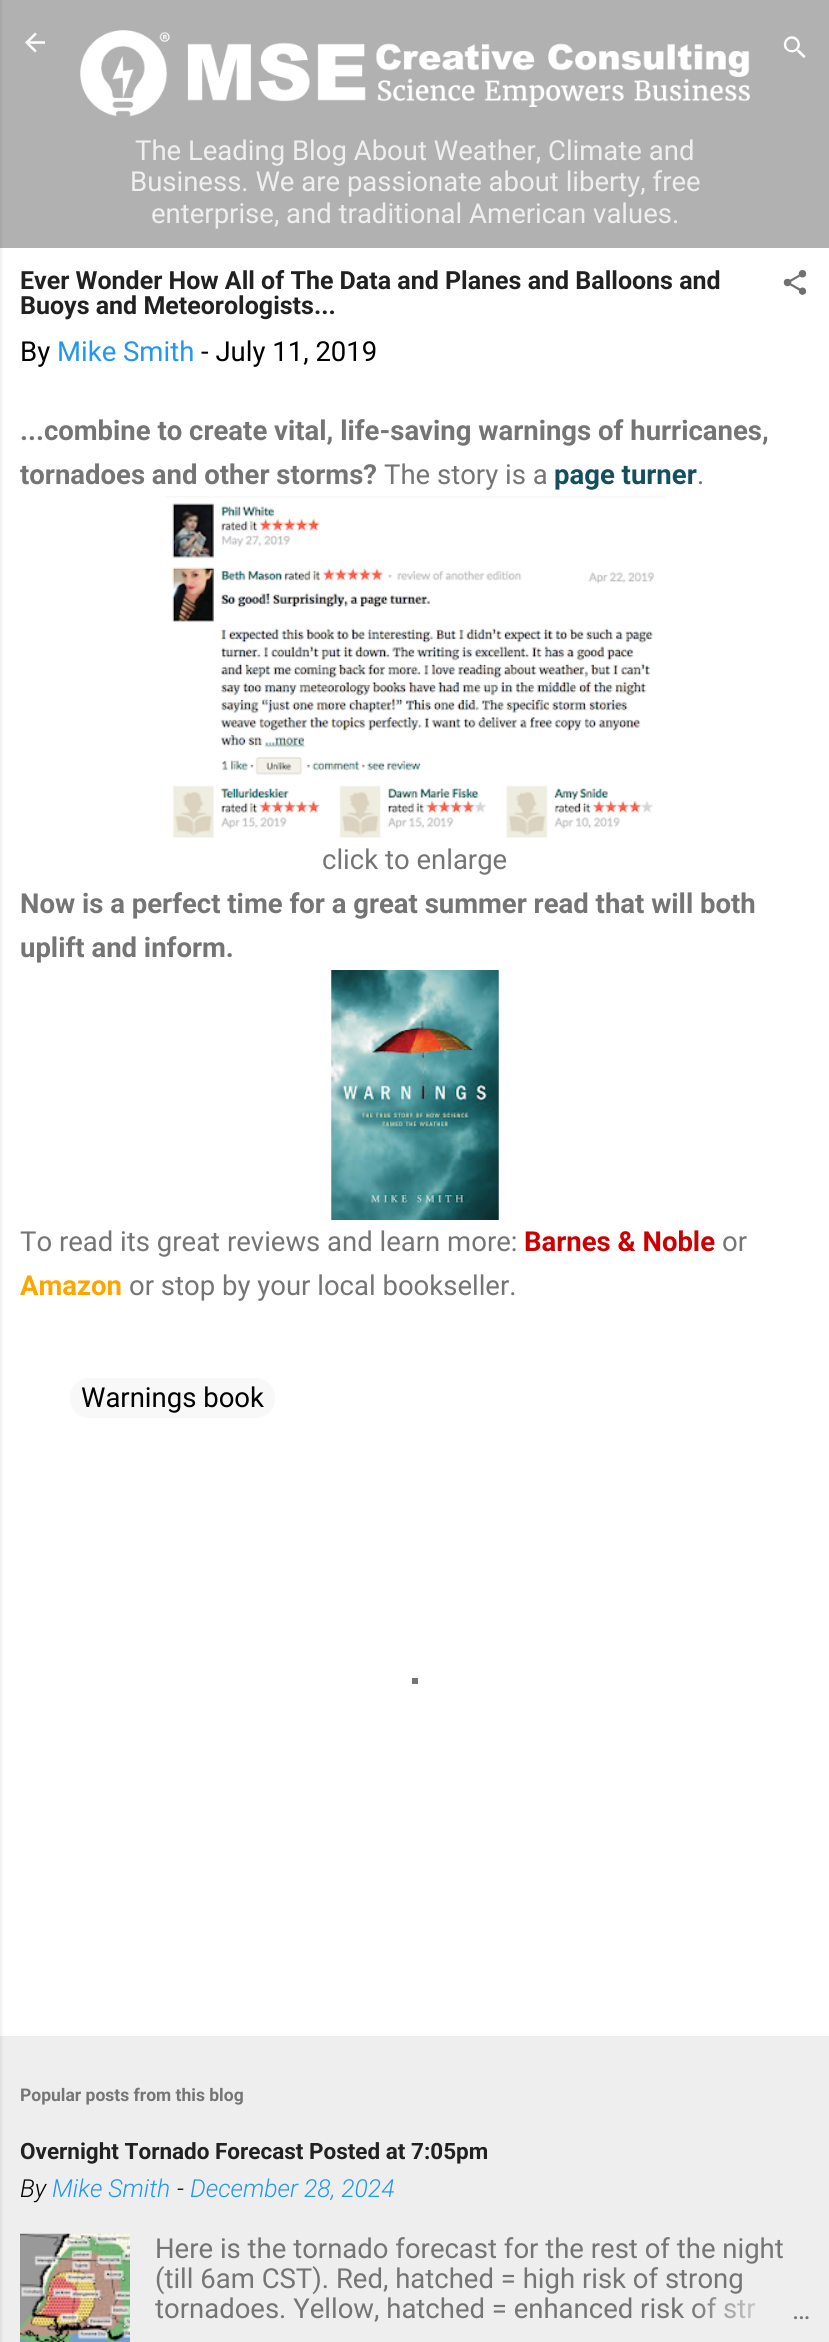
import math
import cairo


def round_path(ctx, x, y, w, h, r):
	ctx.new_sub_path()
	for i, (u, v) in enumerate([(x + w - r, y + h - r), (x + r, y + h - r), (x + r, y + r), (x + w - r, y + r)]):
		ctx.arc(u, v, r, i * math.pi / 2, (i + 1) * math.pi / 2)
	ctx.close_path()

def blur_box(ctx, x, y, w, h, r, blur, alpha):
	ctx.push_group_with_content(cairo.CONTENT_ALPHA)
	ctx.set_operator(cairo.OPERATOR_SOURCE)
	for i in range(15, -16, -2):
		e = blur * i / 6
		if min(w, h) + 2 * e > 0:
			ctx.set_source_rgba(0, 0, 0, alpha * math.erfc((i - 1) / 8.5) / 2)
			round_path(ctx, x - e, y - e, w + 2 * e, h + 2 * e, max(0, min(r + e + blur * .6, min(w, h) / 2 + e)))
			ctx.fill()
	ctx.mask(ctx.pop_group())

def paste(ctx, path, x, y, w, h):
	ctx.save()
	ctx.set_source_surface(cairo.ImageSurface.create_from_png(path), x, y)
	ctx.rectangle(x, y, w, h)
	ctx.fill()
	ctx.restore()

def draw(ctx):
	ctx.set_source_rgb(0.933, 0.933, 0.933)
	ctx.paint()
	ctx.set_source_rgb(0.694, 0.694, 0.694)
	ctx.rectangle(0, 0, 829, 248)
	ctx.fill()
	ctx.set_source_rgb(1, 1, 1)
	ctx.rectangle(0, 248, 829, 1788)
	ctx.fill()
	ctx.set_source_rgb(0, 0, 0)
	blur_box(ctx, -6, 1, 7, 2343, 0, 2, 0.1)
	paste(ctx, 'media/1.png', 25, 32, 20, 21)
	paste(ctx, 'media/2.png', 783, 36, 23, 22)
	paste(ctx, 'media/3.png', 80, 30, 670, 87)
	ctx.select_font_face('Roboto')
	ctx.set_font_size(27.5)
	ctx.set_source_rgb(0.937, 0.937, 0.937)
	for x, y, s in [
		(135, 160, 'The Leading Blog About Weather, Climate and'),
		(130, 191, 'Business. We are passionate about liberty, free'),
		(151, 223, 'enterprise, and traditional American values.'),
	]:
		ctx.move_to(x, y)
		ctx.show_text(s)
	ctx.select_font_face('Roboto', cairo.FONT_SLANT_NORMAL, cairo.FONT_WEIGHT_BOLD)
	ctx.set_font_size(25)
	ctx.set_source_rgb(0.129, 0.129, 0.129)
	ctx.move_to(20, 289)
	ctx.show_text('Ever Wonder How All of The Data and Planes and Balloons and')
	ctx.move_to(20, 314)
	ctx.show_text('Buoys and Meteorologists...')
	paste(ctx, 'media/4.png', 783, 270, 24, 25)
	ctx.select_font_face('Roboto')
	ctx.set_font_size(27.5)
	ctx.set_source_rgb(0, 0, 0)
	ctx.move_to(20, 361)
	ctx.show_text('By')
	ctx.set_source_rgb(0.129, 0.588, 0.953)
	ctx.move_to(57, 361)
	ctx.show_text('Mike Smith')
	ctx.set_source_rgb(0, 0, 0)
	ctx.move_to(201, 361)
	ctx.show_text('- July 11, 2019')
	ctx.select_font_face('Roboto', cairo.FONT_SLANT_NORMAL, cairo.FONT_WEIGHT_BOLD)
	ctx.set_source_rgb(0.459, 0.459, 0.459)
	ctx.move_to(20, 440)
	ctx.show_text('...combine to create vital, life-saving warnings of hurricanes,')
	ctx.move_to(20, 484)
	ctx.show_text('tornadoes and other storms?')
	ctx.select_font_face('Roboto')
	ctx.move_to(384, 484)
	ctx.show_text('The story is a')
	ctx.select_font_face('Roboto', cairo.FONT_SLANT_NORMAL, cairo.FONT_WEIGHT_BOLD)
	ctx.set_source_rgb(0.075, 0.31, 0.361)
	ctx.move_to(554, 484)
	ctx.show_text('page turner')
	ctx.select_font_face('Roboto')
	ctx.set_source_rgb(0.459, 0.459, 0.459)
	ctx.move_to(697, 484)
	ctx.show_text('.')
	paste(ctx, 'media/5.png', 165, 496, 500, 342)
	ctx.move_to(322, 869)
	ctx.show_text('click to enlarge')
	ctx.select_font_face('Roboto', cairo.FONT_SLANT_NORMAL, cairo.FONT_WEIGHT_BOLD)
	ctx.move_to(20, 913)
	ctx.show_text('Now is a perfect time for a great summer read that will both')
	ctx.move_to(20, 957)
	ctx.show_text('uplift and inform.')
	paste(ctx, 'media/6.png', 331, 970, 168, 250)
	ctx.select_font_face('Roboto')
	ctx.move_to(20, 1251)
	ctx.show_text('To read its great reviews and learn more:')
	ctx.select_font_face('Roboto', cairo.FONT_SLANT_NORMAL, cairo.FONT_WEIGHT_BOLD)
	ctx.set_source_rgb(0.8, 0, 0)
	ctx.move_to(524, 1251)
	ctx.show_text('Barnes & Noble')
	ctx.select_font_face('Roboto')
	ctx.set_source_rgb(0.459, 0.459, 0.459)
	ctx.move_to(722, 1251)
	ctx.show_text('or')
	ctx.select_font_face('Roboto', cairo.FONT_SLANT_NORMAL, cairo.FONT_WEIGHT_BOLD)
	ctx.set_source_rgb(1, 0.647, 0)
	ctx.move_to(20, 1295)
	ctx.show_text('Amazon')
	ctx.select_font_face('Roboto')
	ctx.set_source_rgb(0.459, 0.459, 0.459)
	ctx.move_to(129, 1295)
	ctx.show_text('or stop by your local bookseller.')
	ctx.set_source_rgb(0.969, 0.969, 0.969)
	round_path(ctx, 70, 1378, 205, 40, 19)
	ctx.fill()
	ctx.set_source_rgb(0, 0, 0)
	ctx.move_to(81, 1407)
	ctx.show_text('Warnings book')
	ctx.select_font_face('Roboto', cairo.FONT_SLANT_NORMAL, cairo.FONT_WEIGHT_BOLD)
	ctx.set_font_size(17.5)
	ctx.set_source_rgb(0.459, 0.459, 0.459)
	ctx.move_to(20, 2101)
	ctx.show_text('Popular posts from this blog')
	ctx.set_font_size(22.5)
	ctx.set_source_rgb(0.129, 0.129, 0.129)
	ctx.move_to(20, 2159)
	ctx.show_text('Overnight Tornado Forecast Posted at 7:05pm')
	ctx.select_font_face('Roboto Light', cairo.FONT_SLANT_ITALIC)
	ctx.set_font_size(24.75)
	ctx.set_source_rgb(0, 0, 0)
	ctx.move_to(20, 2197)
	ctx.show_text('By')
	ctx.set_source_rgb(0.129, 0.588, 0.953)
	ctx.move_to(52, 2197)
	ctx.show_text('Mike Smith')
	ctx.set_source_rgb(0, 0, 0)
	ctx.move_to(177, 2197)
	ctx.show_text('-')
	ctx.set_source_rgb(0.129, 0.588, 0.953)
	ctx.move_to(190, 2197)
	ctx.show_text('December 28, 2024')
	paste(ctx, 'media/7.png', 20, 2233, 110, 109)
	ctx.select_font_face('Roboto')
	ctx.set_font_size(27.5)
	ctx.set_source_rgb(0.459, 0.459, 0.459)
	for x, y, s in [
		(155, 2258, 'Here is the tornado forecast for the rest of the night'),
		(155, 2288, '(till 6am CST). Red, hatched = high risk of strong'),
		(155, 2318, 'tornadoes. Yellow, hatched = enhanced risk of str'),
	]:
		ctx.move_to(x, y)
		ctx.show_text(s)
	gradient = cairo.LinearGradient(810, 2309, 690, 2309)
	gradient.add_color_stop_rgba(0, 0.933, 0.933, 0.933, 1)
	gradient.add_color_stop_rgba(0.2, 0.933, 0.933, 0.933, 1)
	gradient.add_color_stop_rgba(1, 0.933, 0.933, 0.933, 0)
	ctx.set_source(gradient)
	ctx.rectangle(693, 2297, 63, 22)
	ctx.fill()
	ctx.set_source_rgb(0.459, 0.459, 0.459)
	ctx.move_to(792, 2319)
	ctx.show_text('…')
	ctx.rectangle(412, 1678, 6, 6)
	ctx.fill()


surface = cairo.ImageSurface(cairo.FORMAT_RGB24, 829, 2342)
ctx = cairo.Context(surface)
options = cairo.FontOptions()
options.set_hint_metrics(cairo.HINT_METRICS_OFF)
options.set_hint_style(cairo.HINT_STYLE_NONE)
ctx.set_font_options(options)
ctx.set_miter_limit(4)
draw(ctx)
surface.write_to_png('image.png')
